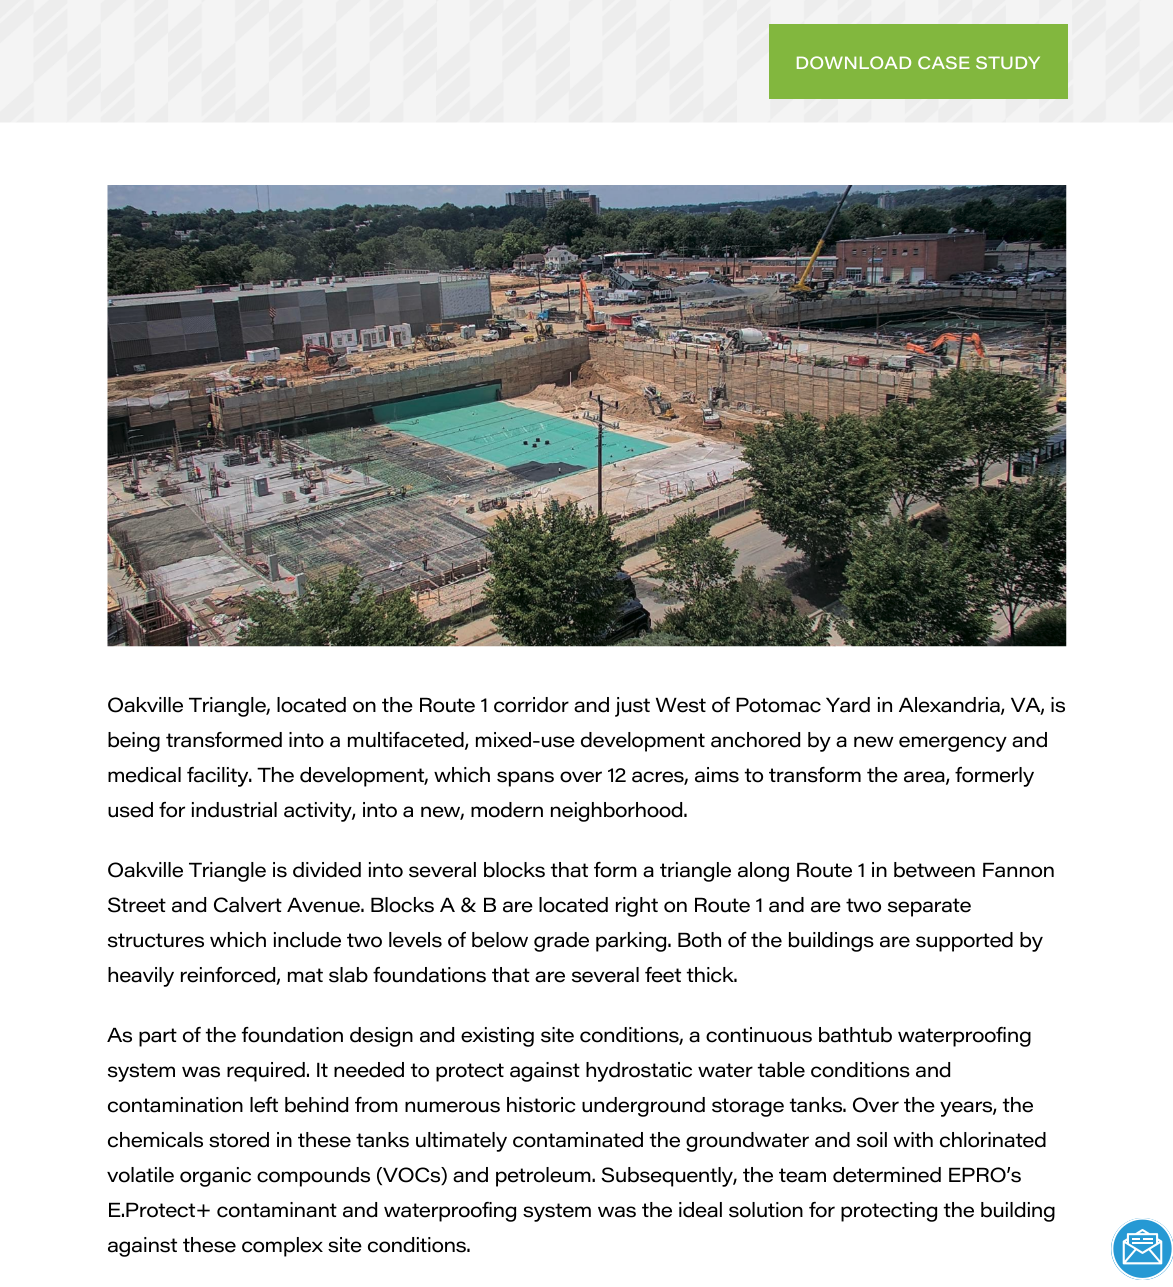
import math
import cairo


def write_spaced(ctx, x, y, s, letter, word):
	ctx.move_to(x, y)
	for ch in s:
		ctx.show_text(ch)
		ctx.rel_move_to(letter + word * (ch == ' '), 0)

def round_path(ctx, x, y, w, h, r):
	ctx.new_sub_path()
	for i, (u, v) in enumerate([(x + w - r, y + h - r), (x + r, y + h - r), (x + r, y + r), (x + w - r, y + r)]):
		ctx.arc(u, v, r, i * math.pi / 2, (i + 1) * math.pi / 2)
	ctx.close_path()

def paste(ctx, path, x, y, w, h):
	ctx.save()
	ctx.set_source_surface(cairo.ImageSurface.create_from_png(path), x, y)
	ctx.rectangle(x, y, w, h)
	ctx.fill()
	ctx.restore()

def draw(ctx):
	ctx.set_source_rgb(1, 1, 1)
	ctx.paint()
	paste(ctx, 'media/1.png', 0, 0, 1173, 123)
	ctx.set_source_rgb(0.51, 0.718, 0.243)
	ctx.rectangle(769, 24, 299, 75)
	ctx.fill()
	ctx.select_font_face('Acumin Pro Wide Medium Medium')
	ctx.set_font_size(17.5)
	ctx.set_source_rgb(1, 1, 1)
	ctx.move_to(795, 69)
	ctx.show_text('DOWNLOAD CASE STUDY')
	paste(ctx, 'media/2.png', 107, 185, 960, 462)
	ctx.select_font_face('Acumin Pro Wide')
	ctx.set_font_size(20)
	ctx.set_source_rgb(0, 0, 0)
	for x, y, s in [
		(107, 712, 'Oakville Triangle, located on the Route 1 corridor and just West of Potomac Yard in Alexandria, VA, is'),
		(107, 747, 'being transformed into a multifaceted, mixed-use development anchored by a new emergency and'),
		(107, 782, 'medical facility. The development, which spans over 12 acres, aims to transform the area, formerly'),
		(107, 817, 'used for industrial activity, into a new, modern neighborhood.'),
		(107, 877, 'Oakville Triangle is divided into several blocks that form a triangle along Route 1 in between Fannon'),
		(107, 912, 'Street and Calvert Avenue. Blocks A & B are located right on Route 1 and are two separate'),
		(107, 947, 'structures which include two levels of below grade parking. Both of the buildings are supported by'),
		(107, 982, 'heavily reinforced, mat slab foundations that are several feet thick.'),
		(107, 1042, 'As part of the foundation design and existing site conditions, a continuous bathtub waterproofing'),
		(107, 1077, 'system was required. It needed to protect against hydrostatic water table conditions and'),
		(107, 1112, 'contamination left behind from numerous historic underground storage tanks. Over the years, the'),
		(107, 1147, 'chemicals stored in these tanks ultimately contaminated the groundwater and soil with chlorinated'),
		(107, 1182, 'volatile organic compounds (VOCs) and petroleum. Subsequently, the team determined EPRO’s'),
		(107, 1217, 'E.Protect+ contaminant and waterproofing system was the ideal solution for protecting the building'),
		(107, 1252, 'against these complex site conditions.'),
	]:
		write_spaced(ctx, x, y, s, -0.5, 0)
	ctx.set_source_rgb(0.149, 0.6, 0.831)
	round_path(ctx, 1111, 1218, 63, 62, 31)
	ctx.fill()
	paste(ctx, 'media/3.png', 1111, 1218, 62, 62)


surface = cairo.ImageSurface(cairo.FORMAT_RGB24, 1173, 1287)
ctx = cairo.Context(surface)
options = cairo.FontOptions()
options.set_hint_metrics(cairo.HINT_METRICS_OFF)
options.set_hint_style(cairo.HINT_STYLE_NONE)
ctx.set_font_options(options)
ctx.set_miter_limit(4)
draw(ctx)
surface.write_to_png('image.png')
